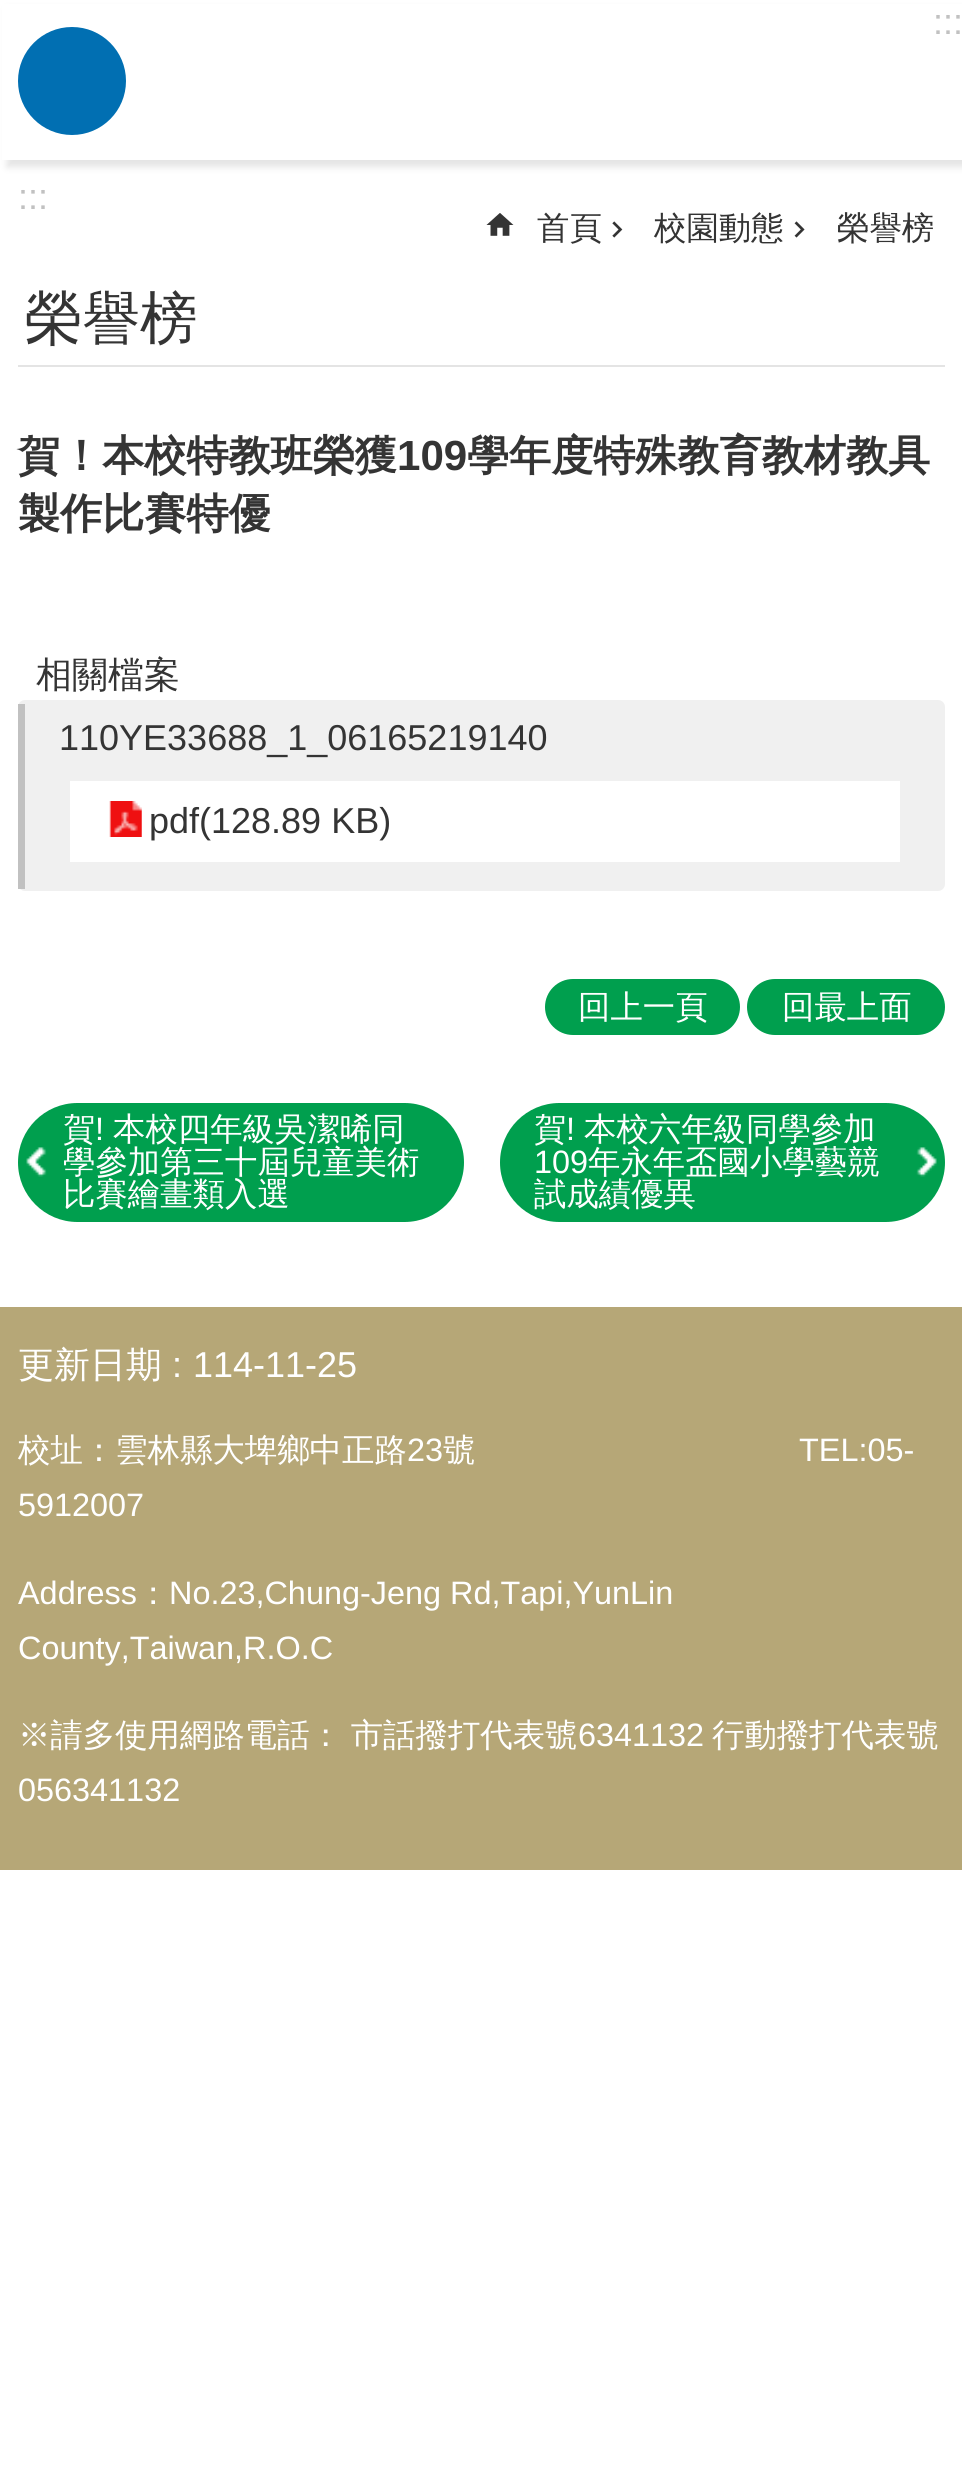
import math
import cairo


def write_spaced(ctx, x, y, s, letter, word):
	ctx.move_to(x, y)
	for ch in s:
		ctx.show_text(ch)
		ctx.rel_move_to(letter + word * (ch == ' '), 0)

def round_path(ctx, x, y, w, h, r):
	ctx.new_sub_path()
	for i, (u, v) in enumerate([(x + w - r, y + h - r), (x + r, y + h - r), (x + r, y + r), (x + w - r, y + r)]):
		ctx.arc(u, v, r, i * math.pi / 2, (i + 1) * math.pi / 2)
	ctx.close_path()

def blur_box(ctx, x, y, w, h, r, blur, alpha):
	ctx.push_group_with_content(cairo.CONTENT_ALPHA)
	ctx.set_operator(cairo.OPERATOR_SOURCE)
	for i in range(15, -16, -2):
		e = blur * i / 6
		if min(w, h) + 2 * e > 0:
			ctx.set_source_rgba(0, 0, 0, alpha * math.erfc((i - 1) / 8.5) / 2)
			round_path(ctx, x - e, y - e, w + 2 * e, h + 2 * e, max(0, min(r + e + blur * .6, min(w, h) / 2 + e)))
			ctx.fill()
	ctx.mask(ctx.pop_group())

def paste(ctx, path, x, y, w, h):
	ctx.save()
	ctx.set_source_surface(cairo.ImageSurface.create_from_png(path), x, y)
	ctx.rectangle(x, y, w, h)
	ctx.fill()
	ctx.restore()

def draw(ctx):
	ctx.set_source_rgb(1, 1, 1)
	ctx.paint()
	ctx.set_source_rgb(0.894, 0.894, 0.894)
	blur_box(ctx, 7, 9, 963, 158, 0, 3.5, 1)
	ctx.set_source_rgb(1, 1, 1)
	ctx.rectangle(2, 4, 960, 156)
	ctx.fill()
	ctx.select_font_face('Liberation Sans')
	ctx.set_font_size(36)
	ctx.set_source_rgb(0.757, 0.757, 0.757)
	ctx.move_to(933, 34)
	ctx.show_text(':::')
	ctx.move_to(18, 209)
	ctx.show_text(':::')
	paste(ctx, 'media/1.png', 486, 213, 28, 23)
	ctx.select_font_face('WenQuanYi Zen Hei Medium')
	ctx.set_font_size(32.4)
	ctx.set_source_rgb(0.204, 0.204, 0.204)
	ctx.move_to(537, 239)
	ctx.show_text('首頁')
	paste(ctx, 'media/2.png', 612, 221, 11, 17)
	ctx.move_to(654, 239)
	ctx.show_text('校園動態')
	paste(ctx, 'media/3.png', 794, 221, 11, 17)
	ctx.move_to(837, 239)
	ctx.show_text('榮譽榜')
	ctx.set_source_rgb(0.894, 0.894, 0.894)
	ctx.rectangle(18, 365, 927, 2)
	ctx.fill()
	ctx.set_font_size(57.5)
	ctx.set_source_rgb(0.204, 0.204, 0.204)
	ctx.move_to(25, 338)
	ctx.show_text('榮譽榜')
	ctx.select_font_face('WenQuanYi Zen Hei', cairo.FONT_SLANT_NORMAL, cairo.FONT_WEIGHT_BOLD)
	ctx.set_font_size(42.1)
	ctx.move_to(18, 470)
	ctx.show_text('賀！本校特教班榮獲')
	ctx.select_font_face('Liberation Sans', cairo.FONT_SLANT_NORMAL, cairo.FONT_WEIGHT_BOLD)
	ctx.move_to(397, 470)
	ctx.show_text('109')
	ctx.select_font_face('WenQuanYi Zen Hei', cairo.FONT_SLANT_NORMAL, cairo.FONT_WEIGHT_BOLD)
	ctx.move_to(467, 470)
	ctx.show_text('學年度特殊教育教材教具')
	ctx.move_to(18, 528)
	ctx.show_text('製作比賽特優')
	ctx.select_font_face('WenQuanYi Zen Hei Medium')
	ctx.set_font_size(36)
	ctx.move_to(36, 687)
	ctx.show_text('相關檔案')
	ctx.set_source_rgb(0.941, 0.941, 0.941)
	round_path(ctx, 18, 700, 927, 191, 7)
	ctx.fill()
	ctx.set_source_rgb(0.757, 0.757, 0.757)
	ctx.rectangle(18, 704, 7, 185)
	ctx.fill()
	ctx.select_font_face('Liberation Sans')
	ctx.set_source_rgb(0.204, 0.204, 0.204)
	ctx.move_to(59, 750)
	ctx.show_text('110YE33688_1_06165219140')
	ctx.set_source_rgb(1, 1, 1)
	ctx.rectangle(70, 781, 830, 81)
	ctx.fill()
	paste(ctx, 'media/4.png', 109, 801, 33, 36)
	ctx.set_source_rgb(0.204, 0.204, 0.204)
	ctx.move_to(149, 833)
	ctx.show_text('pdf(128.89 KB)')
	ctx.set_source_rgb(0, 0.624, 0.306)
	round_path(ctx, 545, 979, 195, 56, 28)
	ctx.fill()
	ctx.select_font_face('WenQuanYi Zen Hei Medium')
	ctx.set_font_size(32.4)
	ctx.set_source_rgb(1, 1, 1)
	ctx.move_to(578, 1018)
	ctx.show_text('回上一頁')
	ctx.set_source_rgb(0, 0.624, 0.306)
	round_path(ctx, 747, 979, 198, 56, 28)
	ctx.fill()
	ctx.set_source_rgb(1, 1, 1)
	ctx.move_to(782, 1018)
	ctx.show_text('回最上面')
	ctx.set_source_rgb(0, 0.624, 0.306)
	round_path(ctx, 18, 1103, 446, 119, 59.5)
	ctx.fill()
	paste(ctx, 'media/5.png', 26, 1147, 21, 30)
	ctx.set_source_rgb(1, 1, 1)
	ctx.move_to(63, 1140)
	ctx.show_text('賀')
	ctx.select_font_face('Liberation Sans')
	ctx.move_to(95, 1140)
	ctx.show_text('!')
	ctx.select_font_face('WenQuanYi Zen Hei Medium')
	for x, y, s in [
		(113, 1140, '本校四年級吳潔晞同'),
		(63, 1173, '學參加第三十屆兒童美術'),
		(63, 1205, '比賽繪畫類入選'),
	]:
		ctx.move_to(x, y)
		ctx.show_text(s)
	ctx.set_source_rgb(0, 0.624, 0.306)
	round_path(ctx, 500, 1103, 445, 119, 59.5)
	ctx.fill()
	paste(ctx, 'media/6.png', 916, 1147, 21, 30)
	ctx.set_source_rgb(1, 1, 1)
	ctx.move_to(534, 1140)
	ctx.show_text('賀')
	ctx.select_font_face('Liberation Sans')
	ctx.move_to(566, 1140)
	ctx.show_text('!')
	ctx.select_font_face('WenQuanYi Zen Hei Medium')
	ctx.move_to(584, 1140)
	ctx.show_text('本校六年級同學參加')
	ctx.select_font_face('Liberation Sans')
	ctx.move_to(534, 1173)
	ctx.show_text('109')
	ctx.select_font_face('WenQuanYi Zen Hei Medium')
	ctx.move_to(588, 1173)
	ctx.show_text('年永年盃國小學藝競')
	ctx.move_to(534, 1205)
	ctx.show_text('試成績優異')
	ctx.set_source_rgb(0.714, 0.655, 0.467)
	ctx.rectangle(0, 1307, 962, 563)
	ctx.fill()
	ctx.set_font_size(36)
	ctx.set_source_rgb(1, 1, 1)
	ctx.move_to(18, 1377)
	ctx.show_text('更新日期')
	ctx.select_font_face('Liberation Sans')
	ctx.move_to(172, 1377)
	ctx.show_text(':')
	ctx.move_to(193, 1377)
	ctx.show_text('114-11-25')
	ctx.select_font_face('WenQuanYi Zen Hei Medium')
	ctx.set_font_size(32.4)
	ctx.move_to(18, 1461)
	ctx.show_text('校址：雲林縣大埤鄉中正路')
	ctx.select_font_face('Liberation Sans')
	ctx.move_to(407, 1461)
	ctx.show_text('23')
	ctx.select_font_face('WenQuanYi Zen Hei Medium')
	ctx.move_to(443, 1461)
	ctx.show_text('號')
	ctx.select_font_face('Liberation Sans')
	for x, y, s in [
		(799, 1461, 'TEL:05-'),
		(18, 1516, '5912007'),
		(18, 1604, 'Address'),
	]:
		ctx.move_to(x, y)
		ctx.show_text(s)
	ctx.select_font_face('WenQuanYi Zen Hei Medium')
	ctx.move_to(137, 1604)
	ctx.show_text('：')
	ctx.select_font_face('Liberation Sans')
	ctx.move_to(169, 1604)
	ctx.show_text('No.23,Chung-Jeng Rd,Tapi,YunLin')
	ctx.move_to(18, 1659)
	ctx.show_text('County,Taiwan,R.O.C')
	ctx.select_font_face('WenQuanYi Zen Hei Medium')
	write_spaced(ctx, 18, 1746, '※請多使用網路電話： 市話撥打代表號', 0, -1)
	ctx.select_font_face('Liberation Sans')
	ctx.move_to(578, 1746)
	ctx.show_text('6341132')
	ctx.select_font_face('WenQuanYi Zen Hei Medium')
	ctx.move_to(712, 1746)
	ctx.show_text('行動撥打代表號')
	ctx.select_font_face('Liberation Sans')
	ctx.move_to(18, 1801)
	ctx.show_text('056341132')
	ctx.set_source_rgb(0.004, 0.435, 0.698)
	ctx.new_path()
	ctx.arc(72, 81, 54, 0, 2 * math.pi)
	ctx.fill()


surface = cairo.ImageSurface(cairo.FORMAT_RGB24, 962, 2480)
ctx = cairo.Context(surface)
options = cairo.FontOptions()
options.set_hint_metrics(cairo.HINT_METRICS_OFF)
options.set_hint_style(cairo.HINT_STYLE_NONE)
ctx.set_font_options(options)
ctx.set_miter_limit(4)
draw(ctx)
surface.write_to_png('image.png')
